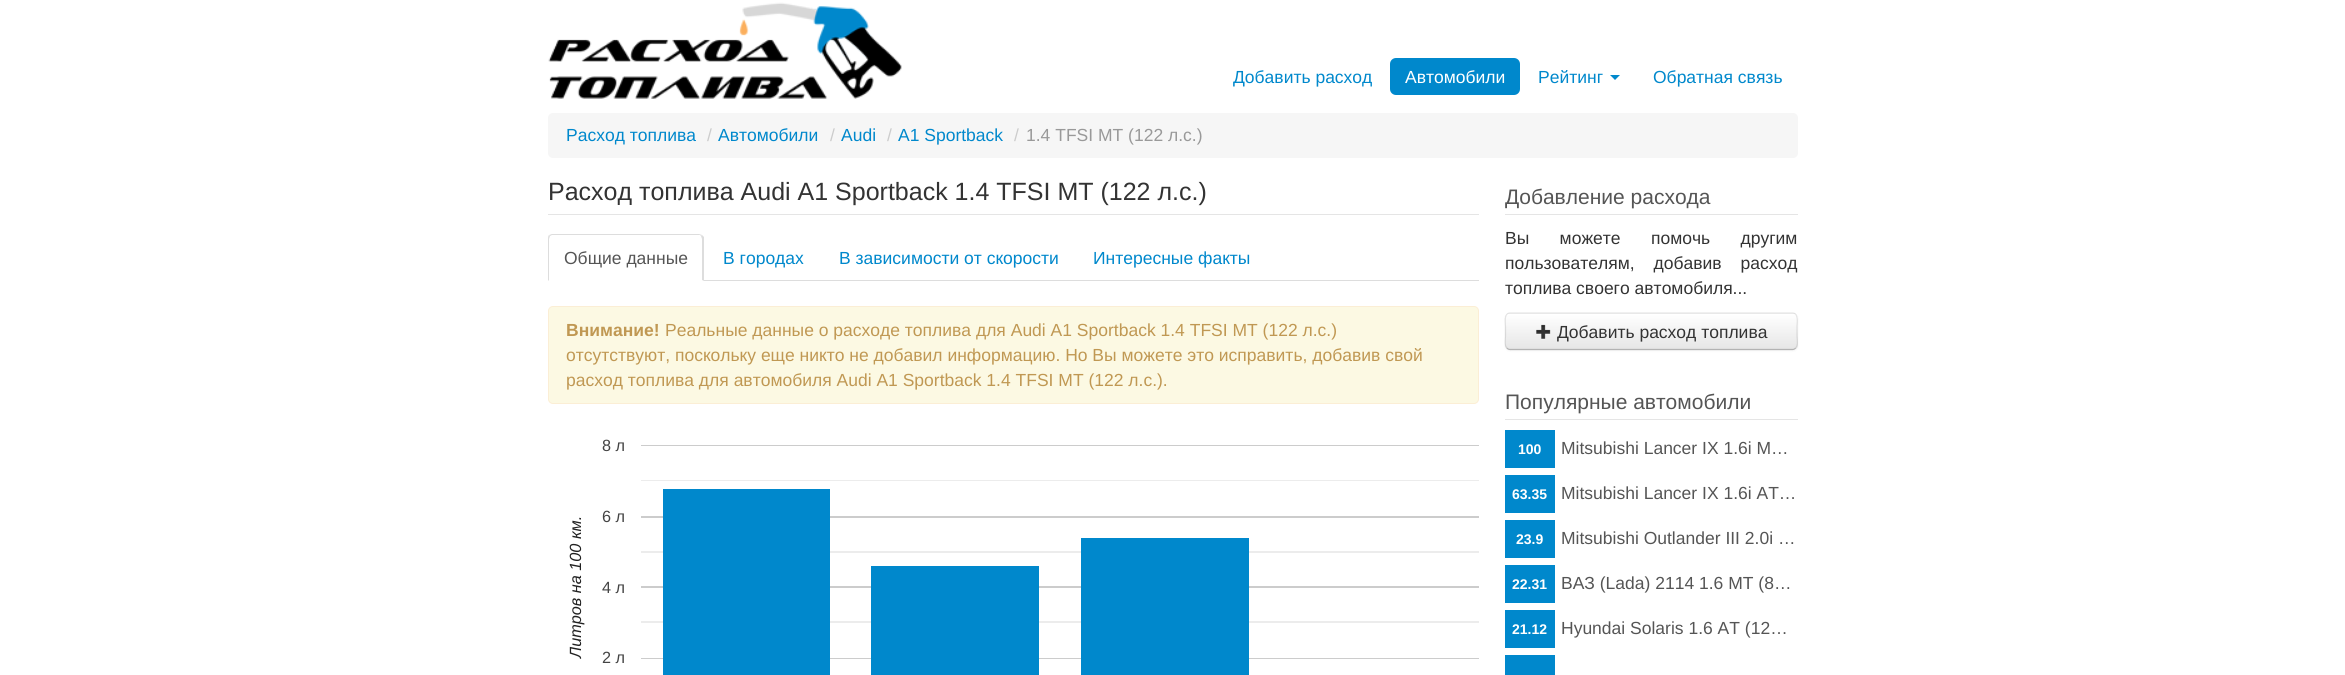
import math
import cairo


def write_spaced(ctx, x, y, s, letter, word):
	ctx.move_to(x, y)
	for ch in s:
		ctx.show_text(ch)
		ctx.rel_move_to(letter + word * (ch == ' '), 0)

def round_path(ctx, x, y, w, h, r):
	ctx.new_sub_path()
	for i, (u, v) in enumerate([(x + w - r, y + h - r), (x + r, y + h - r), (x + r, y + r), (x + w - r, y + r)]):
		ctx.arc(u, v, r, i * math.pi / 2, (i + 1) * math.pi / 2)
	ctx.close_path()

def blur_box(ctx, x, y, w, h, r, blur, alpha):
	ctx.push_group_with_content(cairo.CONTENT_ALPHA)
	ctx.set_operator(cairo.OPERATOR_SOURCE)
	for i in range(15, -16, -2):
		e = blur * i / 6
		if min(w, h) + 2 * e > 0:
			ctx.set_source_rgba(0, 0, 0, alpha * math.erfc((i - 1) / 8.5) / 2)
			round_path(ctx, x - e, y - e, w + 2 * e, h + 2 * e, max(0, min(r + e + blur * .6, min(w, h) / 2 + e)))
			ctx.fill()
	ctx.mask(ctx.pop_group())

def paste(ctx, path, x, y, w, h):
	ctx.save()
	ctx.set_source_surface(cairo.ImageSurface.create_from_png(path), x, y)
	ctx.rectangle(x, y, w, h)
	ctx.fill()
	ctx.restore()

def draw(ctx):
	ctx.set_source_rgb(1, 1, 1)
	ctx.paint()
	paste(ctx, 'media/1.png', 548, 2, 354, 97)
	ctx.select_font_face('Liberation Sans')
	ctx.set_font_size(17.5)
	ctx.set_source_rgb(0, 0.533, 0.8)
	ctx.move_to(1233, 83)
	ctx.show_text('Добавить расход')
	round_path(ctx, 1390, 58, 130, 37, 6)
	ctx.fill()
	ctx.set_source_rgb(1, 1, 1)
	ctx.move_to(1405, 83)
	ctx.show_text('Автомобили')
	ctx.set_source_rgb(0, 0.533, 0.8)
	ctx.move_to(1538, 83)
	ctx.show_text('Рейтинг')
	ctx.new_path()
	ctx.move_to(1610, 75)
	ctx.line_to(1620, 75)
	ctx.line_to(1615, 80)
	ctx.close_path()
	ctx.fill()
	ctx.move_to(1653, 83)
	ctx.show_text('Обратная связь')
	ctx.set_source_rgb(0.961, 0.961, 0.961)
	round_path(ctx, 548, 113, 1250, 45, 5)
	ctx.fill()
	ctx.set_source_rgb(0, 0.533, 0.8)
	ctx.move_to(566, 141)
	ctx.show_text('Расход топлива')
	ctx.set_source_rgb(0.8, 0.8, 0.8)
	ctx.move_to(707, 141)
	ctx.show_text('/')
	ctx.set_source_rgb(0, 0.533, 0.8)
	ctx.move_to(718, 141)
	ctx.show_text('Автомобили')
	ctx.set_source_rgb(0.8, 0.8, 0.8)
	ctx.move_to(830, 141)
	ctx.show_text('/')
	ctx.set_source_rgb(0, 0.533, 0.8)
	ctx.move_to(841, 141)
	ctx.show_text('Audi')
	ctx.set_source_rgb(0.8, 0.8, 0.8)
	ctx.move_to(887, 141)
	ctx.show_text('/')
	ctx.set_source_rgb(0, 0.533, 0.8)
	ctx.move_to(898, 141)
	ctx.show_text('A1 Sportback')
	ctx.set_source_rgb(0.8, 0.8, 0.8)
	ctx.move_to(1014, 141)
	ctx.show_text('/')
	ctx.set_source_rgb(0.6, 0.6, 0.6)
	ctx.move_to(1026, 141)
	ctx.show_text('1.4 TFSI MT (122 л.с.)')
	ctx.set_source_rgb(0.898, 0.898, 0.898)
	ctx.rectangle(548, 214, 931, 1)
	ctx.fill()
	ctx.set_font_size(25)
	ctx.set_source_rgb(0.2, 0.2, 0.2)
	ctx.move_to(548, 200)
	ctx.show_text('Расход топлива Audi A1 Sportback 1.4 TFSI MT (122 л.с.)')
	ctx.set_source_rgb(0.867, 0.867, 0.867)
	ctx.rectangle(704, 280, 775, 1)
	ctx.fill()
	ctx.new_path()
	ctx.move_to(552, 234)
	ctx.curve_to(551, 234, 550, 235, 549, 235)
	ctx.line_to(550, 236)
	ctx.line_to(552, 235)
	ctx.line_to(700, 235)
	ctx.line_to(701, 236)
	ctx.line_to(702, 235)
	ctx.line_to(699, 234)
	ctx.close_path()
	ctx.fill()
	ctx.new_path()
	ctx.move_to(702, 235)
	ctx.line_to(704, 237)
	ctx.line_to(704, 281)
	ctx.line_to(702, 280)
	ctx.line_to(702, 239)
	ctx.line_to(701, 236)
	ctx.close_path()
	ctx.fill()
	ctx.new_path()
	ctx.move_to(549, 235)
	ctx.curve_to(548, 236, 548, 238, 548, 239)
	ctx.line_to(548, 281)
	ctx.line_to(549, 280)
	ctx.line_to(549, 239)
	ctx.line_to(550, 236)
	ctx.close_path()
	ctx.fill()
	ctx.set_font_size(17.5)
	ctx.set_source_rgb(0.333, 0.333, 0.333)
	ctx.move_to(564, 264)
	ctx.show_text('Общие данные')
	ctx.set_source_rgb(0, 0.533, 0.8)
	for x, y, s in [
		(723, 264, 'В городах'),
		(839, 264, 'В зависимости от скорости'),
		(1093, 264, 'Интересные факты'),
	]:
		ctx.move_to(x, y)
		ctx.show_text(s)
	ctx.set_source_rgb(0.988, 0.973, 0.89)
	round_path(ctx, 548.5, 306.5, 930, 97, 4.5)
	ctx.fill_preserve()
	ctx.set_source_rgb(0.984, 0.933, 0.835)
	ctx.set_line_width(1)
	ctx.stroke()
	ctx.select_font_face('Liberation Sans', cairo.FONT_SLANT_NORMAL, cairo.FONT_WEIGHT_BOLD)
	ctx.set_source_rgb(0.753, 0.596, 0.325)
	ctx.move_to(566, 336)
	ctx.show_text('Внимание!')
	ctx.select_font_face('Liberation Sans')
	for x, y, s in [
		(665, 336, 'Реальные данные о расходе топлива для Audi A1 Sportback 1.4 TFSI MT (122 л.с.)'),
		(566, 361, 'отсутствуют, поскольку еще никто не добавил информацию. Но Вы можете это исправить, добавив свой'),
		(566, 386, 'расход топлива для автомобиля Audi A1 Sportback 1.4 TFSI MT (122 л.с.).'),
	]:
		ctx.move_to(x, y)
		ctx.show_text(s)
	ctx.set_font_size(16.25)
	ctx.set_source_rgb(0.267, 0.267, 0.267)
	ctx.move_to(602, 451)
	ctx.show_text('8 л')
	ctx.set_source_rgb(0.8, 0.8, 0.8)
	ctx.rectangle(641, 445, 838, 1)
	ctx.fill()
	ctx.set_source_rgb(0.922, 0.922, 0.922)
	ctx.rectangle(641, 480, 838, 1)
	ctx.fill()
	ctx.select_font_face('Liberation Sans', cairo.FONT_SLANT_ITALIC)
	ctx.set_source_rgb(0.133, 0.133, 0.133)
	ctx.save()
	ctx.translate(581, 658)
	ctx.rotate(-90 * math.pi / 180)
	ctx.move_to(0, 0)
	ctx.show_text('Литров на 100 км.')
	ctx.restore()
	ctx.select_font_face('Liberation Sans')
	ctx.set_source_rgb(0.267, 0.267, 0.267)
	ctx.move_to(602, 522)
	ctx.show_text('6 л')
	ctx.set_source_rgb(0.8, 0.8, 0.8)
	ctx.rectangle(641, 516, 838, 2)
	ctx.fill()
	ctx.set_source_rgb(0.267, 0.267, 0.267)
	ctx.move_to(602, 593)
	ctx.show_text('4 л')
	ctx.set_source_rgb(0.8, 0.8, 0.8)
	ctx.rectangle(641, 586, 838, 2)
	ctx.fill()
	ctx.set_source_rgb(0.922, 0.922, 0.922)
	ctx.rectangle(641, 621, 838, 2)
	ctx.rectangle(641, 551, 838, 2)
	ctx.fill()
	ctx.set_source_rgb(0.8, 0.8, 0.8)
	ctx.rectangle(641, 658, 838, 1)
	ctx.fill()
	ctx.set_source_rgb(0, 0.533, 0.8)
	ctx.rectangle(663, 489, 167, 186)
	ctx.rectangle(871, 566, 168, 109)
	ctx.rectangle(1081, 538, 168, 137)
	ctx.fill()
	ctx.set_source_rgb(0.267, 0.267, 0.267)
	ctx.move_to(602, 663)
	ctx.show_text('2 л')
	ctx.set_source_rgb(0.898, 0.898, 0.898)
	ctx.rectangle(1505, 214, 293, 1)
	ctx.fill()
	ctx.set_font_size(21)
	ctx.set_source_rgb(0.333, 0.333, 0.333)
	ctx.move_to(1505, 204)
	ctx.show_text('Добавление расхода')
	ctx.set_font_size(17.5)
	ctx.set_source_rgb(0.2, 0.2, 0.2)
	write_spaced(ctx, 1505, 244, 'Вы можете помочь другим', 0, 25.5)
	write_spaced(ctx, 1505, 269, 'пользователям, добавив расход', 0, 14)
	ctx.move_to(1505, 294)
	ctx.show_text('топлива своего автомобиля...')
	ctx.set_source_rgb(0, 0, 0)
	blur_box(ctx, 1505, 314, 293, 37, 5, 1, 0.05)
	ctx.set_source_rgb(0.961, 0.961, 0.961)
	round_path(ctx, 1505, 313, 293, 37, 5)
	ctx.fill()
	ctx.save()
	round_path(ctx, 1505, 313, 293, 37, 5)
	ctx.clip()
	gradient = cairo.LinearGradient(1651, 314, 1651, 349)
	gradient.add_color_stop_rgba(0, 1, 1, 1, 1)
	gradient.add_color_stop_rgba(1, 0.902, 0.902, 0.902, 1)
	ctx.set_source(gradient)
	ctx.rectangle(1505, 314, 293, 35)
	ctx.fill()
	ctx.restore()
	ctx.new_path()
	ctx.move_to(1795.5, 348)
	ctx.curve_to(1795, 349, 1793.5, 349.5, 1792.5, 349.5)
	ctx.line_to(1510, 349.5)
	ctx.curve_to(1509, 349.5, 1507.5, 349, 1507, 348)
	ctx.set_source_rgb(0.702, 0.702, 0.702)
	ctx.set_line_width(1.2)
	ctx.stroke()
	ctx.new_path()
	ctx.move_to(1507, 348)
	ctx.curve_to(1504, 345.5, 1505.5, 339, 1505.5, 336)
	ctx.line_to(1505.5, 326.5)
	ctx.curve_to(1505.5, 323.5, 1503.5, 313, 1510, 313)
	ctx.line_to(1792.5, 313)
	ctx.curve_to(1799, 313, 1797, 323.5, 1797, 326.5)
	ctx.line_to(1797, 336)
	ctx.curve_to(1797, 339, 1798.5, 345.5, 1795.5, 348)
	ctx.set_source_rgba(0, 0, 0, 0.1)
	ctx.stroke()
	paste(ctx, 'media/2.png', 1536, 324, 15, 16)
	ctx.set_source_rgb(0.2, 0.2, 0.2)
	ctx.move_to(1557, 338)
	ctx.show_text('Добавить расход топлива')
	ctx.set_source_rgb(0.898, 0.898, 0.898)
	ctx.rectangle(1505, 419, 293, 1)
	ctx.fill()
	ctx.set_font_size(21)
	ctx.set_source_rgb(0.333, 0.333, 0.333)
	ctx.move_to(1505, 409)
	ctx.show_text('Популярные автомобили')
	ctx.set_source_rgb(0, 0.533, 0.8)
	ctx.rectangle(1505, 430, 50, 38)
	ctx.fill()
	ctx.select_font_face('Liberation Sans', cairo.FONT_SLANT_NORMAL, cairo.FONT_WEIGHT_BOLD)
	ctx.set_font_size(14)
	ctx.set_source_rgb(1, 1, 1)
	ctx.move_to(1518, 454)
	ctx.show_text('100')
	ctx.select_font_face('Liberation Sans')
	ctx.set_font_size(17.5)
	ctx.set_source_rgb(0.333, 0.333, 0.333)
	ctx.move_to(1561, 454)
	ctx.show_text('Mitsubishi Lancer IX 1.6i M…')
	ctx.set_source_rgb(0, 0.533, 0.8)
	ctx.rectangle(1505, 475, 50, 38)
	ctx.fill()
	ctx.select_font_face('Liberation Sans', cairo.FONT_SLANT_NORMAL, cairo.FONT_WEIGHT_BOLD)
	ctx.set_font_size(14)
	ctx.set_source_rgb(1, 1, 1)
	ctx.move_to(1512, 499)
	ctx.show_text('63.35')
	ctx.select_font_face('Liberation Sans')
	ctx.set_font_size(17.5)
	ctx.set_source_rgb(0.333, 0.333, 0.333)
	ctx.move_to(1561, 499)
	ctx.show_text('Mitsubishi Lancer IX 1.6i AT…')
	ctx.set_source_rgb(0, 0.533, 0.8)
	ctx.rectangle(1505, 520, 50, 38)
	ctx.fill()
	ctx.select_font_face('Liberation Sans', cairo.FONT_SLANT_NORMAL, cairo.FONT_WEIGHT_BOLD)
	ctx.set_font_size(14)
	ctx.set_source_rgb(1, 1, 1)
	ctx.move_to(1516, 544)
	ctx.show_text('23.9')
	ctx.select_font_face('Liberation Sans')
	ctx.set_font_size(17.5)
	ctx.set_source_rgb(0.333, 0.333, 0.333)
	ctx.move_to(1561, 544)
	ctx.show_text('Mitsubishi Outlander III 2.0i …')
	ctx.set_source_rgb(0, 0.533, 0.8)
	ctx.rectangle(1505, 565, 50, 38)
	ctx.fill()
	ctx.select_font_face('Liberation Sans', cairo.FONT_SLANT_NORMAL, cairo.FONT_WEIGHT_BOLD)
	ctx.set_font_size(14)
	ctx.set_source_rgb(1, 1, 1)
	ctx.move_to(1512, 589)
	ctx.show_text('22.31')
	ctx.select_font_face('Liberation Sans')
	ctx.set_font_size(17.5)
	ctx.set_source_rgb(0.333, 0.333, 0.333)
	ctx.move_to(1561, 589)
	ctx.show_text('ВАЗ (Lada) 2114 1.6 MT (8…')
	ctx.set_source_rgb(0, 0.533, 0.8)
	ctx.rectangle(1505, 610, 50, 38)
	ctx.fill()
	ctx.select_font_face('Liberation Sans', cairo.FONT_SLANT_NORMAL, cairo.FONT_WEIGHT_BOLD)
	ctx.set_font_size(14)
	ctx.set_source_rgb(1, 1, 1)
	ctx.move_to(1512, 634)
	ctx.show_text('21.12')
	ctx.select_font_face('Liberation Sans')
	ctx.set_font_size(17.5)
	ctx.set_source_rgb(0.333, 0.333, 0.333)
	ctx.move_to(1561, 634)
	ctx.show_text('Hyundai Solaris 1.6 AT (12…')
	ctx.set_source_rgb(0, 0.533, 0.8)
	ctx.rectangle(1505, 655, 50, 20)
	ctx.fill()


surface = cairo.ImageSurface(cairo.FORMAT_RGB24, 2345, 675)
ctx = cairo.Context(surface)
options = cairo.FontOptions()
options.set_hint_metrics(cairo.HINT_METRICS_OFF)
options.set_hint_style(cairo.HINT_STYLE_NONE)
ctx.set_font_options(options)
ctx.set_miter_limit(4)
draw(ctx)
surface.write_to_png('image.png')
